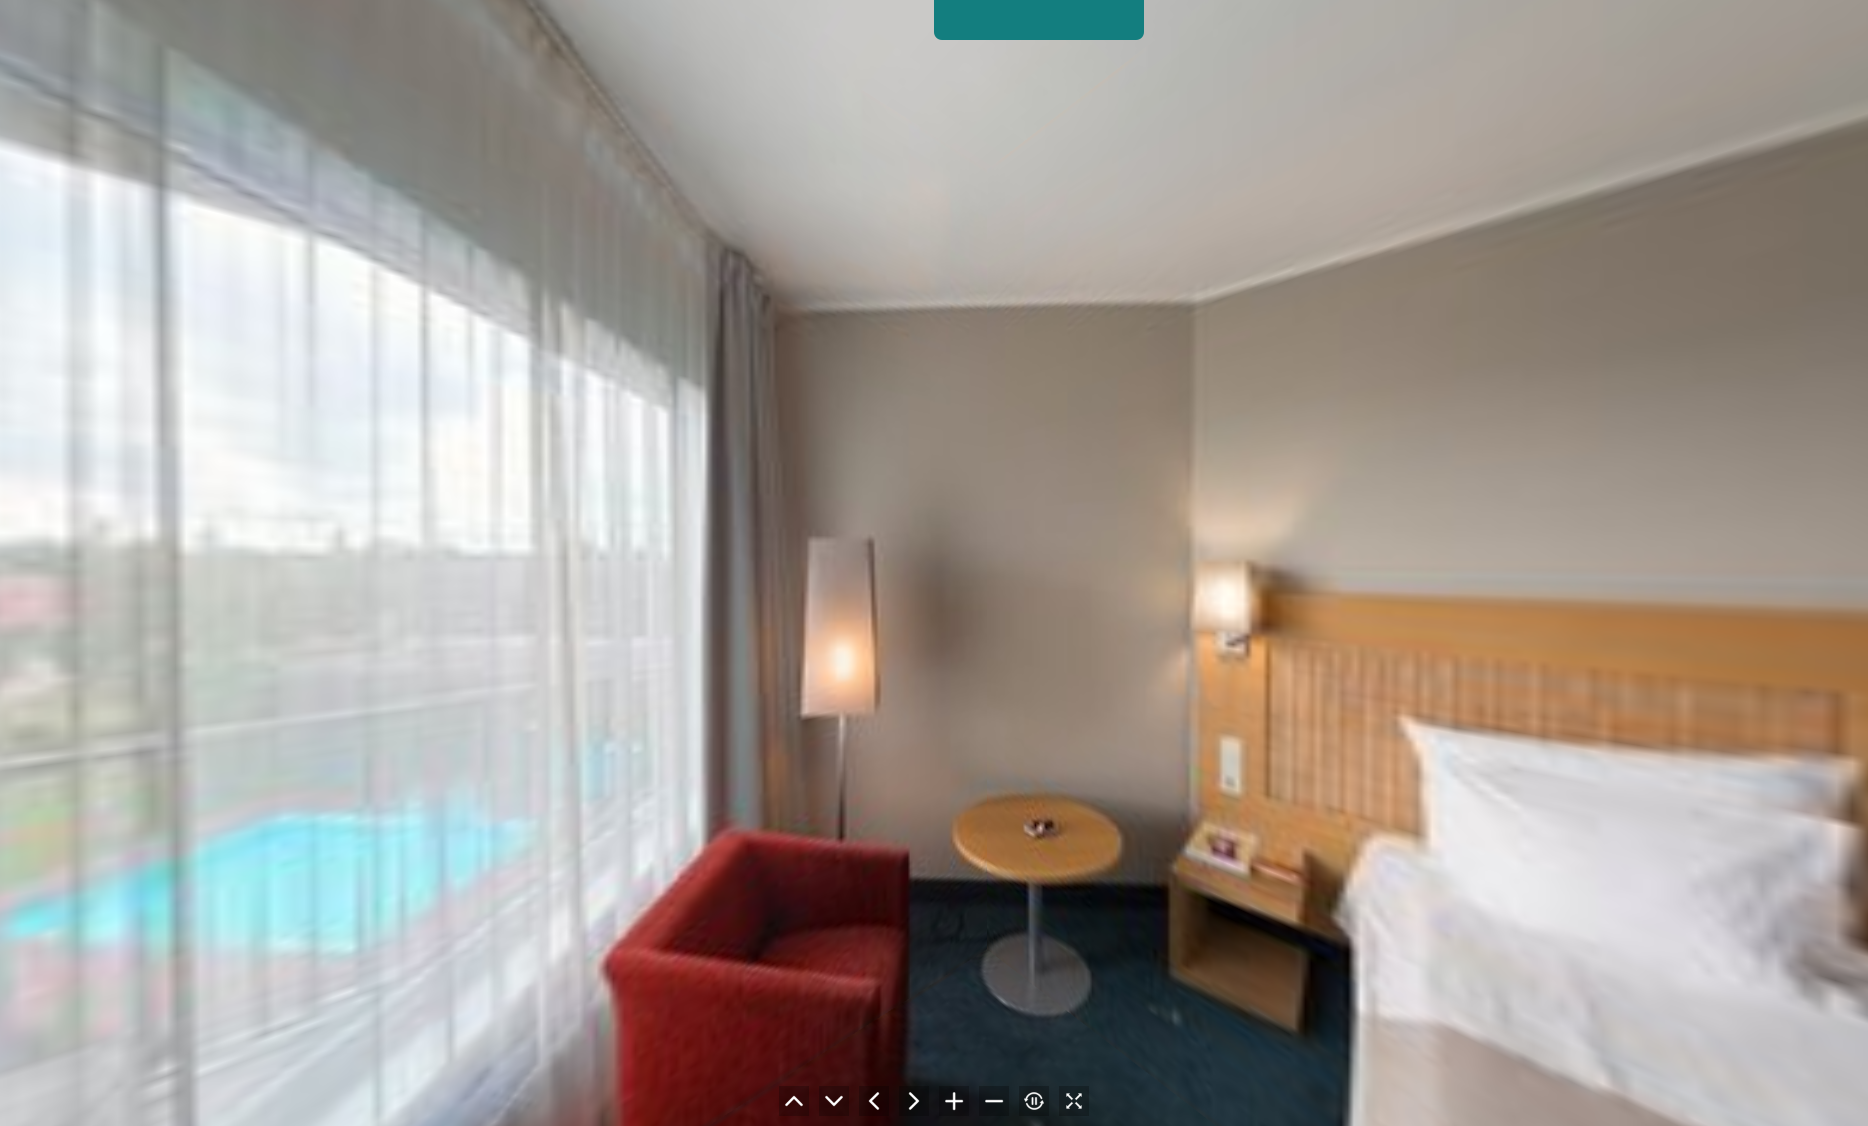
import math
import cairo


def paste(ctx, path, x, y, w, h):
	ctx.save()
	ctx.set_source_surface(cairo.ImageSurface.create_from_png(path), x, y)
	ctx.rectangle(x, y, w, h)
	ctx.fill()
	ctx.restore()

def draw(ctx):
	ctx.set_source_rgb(1, 1, 1)
	ctx.paint()
	paste(ctx, 'media/1.png', 0, 0, 1868, 1126)
	ctx.set_source_rgb(0.075, 0.494, 0.498)
	ctx.new_path()
	ctx.move_to(934, 0)
	ctx.line_to(1144, 0)
	ctx.line_to(1144, 32)
	ctx.curve_to(1144, 36.5, 1140.5, 40, 1136, 40)
	ctx.line_to(942, 40)
	ctx.curve_to(937.5, 40, 934, 36.5, 934, 32)
	ctx.close_path()
	ctx.fill()
	ctx.set_source_rgba(0, 0, 0, 0.25)
	ctx.rectangle(779, 1086, 30, 30)
	ctx.fill()
	paste(ctx, 'media/2.png', 785, 1095, 18, 12)
	ctx.rectangle(819, 1086, 30, 30)
	ctx.fill()
	paste(ctx, 'media/3.png', 825, 1095, 18, 12)
	ctx.rectangle(859, 1086, 30, 30)
	ctx.fill()
	paste(ctx, 'media/4.png', 868, 1092, 12, 18)
	ctx.rectangle(899, 1086, 30, 30)
	ctx.fill()
	paste(ctx, 'media/5.png', 908, 1092, 12, 18)
	ctx.rectangle(939, 1086, 30, 30)
	ctx.fill()
	paste(ctx, 'media/6.png', 945, 1092, 19, 19)
	ctx.rectangle(979, 1086, 30, 30)
	ctx.fill()
	paste(ctx, 'media/7.png', 985, 1099, 19, 4)
	ctx.rectangle(1019, 1086, 30, 30)
	ctx.fill()
	paste(ctx, 'media/8.png', 1024, 1092, 20, 18)
	ctx.rectangle(1059, 1086, 30, 30)
	ctx.fill()
	paste(ctx, 'media/9.png', 1066, 1093, 16, 16)


surface = cairo.ImageSurface(cairo.FORMAT_RGB24, 1868, 1126)
ctx = cairo.Context(surface)
options = cairo.FontOptions()
options.set_hint_metrics(cairo.HINT_METRICS_OFF)
options.set_hint_style(cairo.HINT_STYLE_NONE)
ctx.set_font_options(options)
ctx.set_miter_limit(4)
draw(ctx)
surface.write_to_png('image.png')
